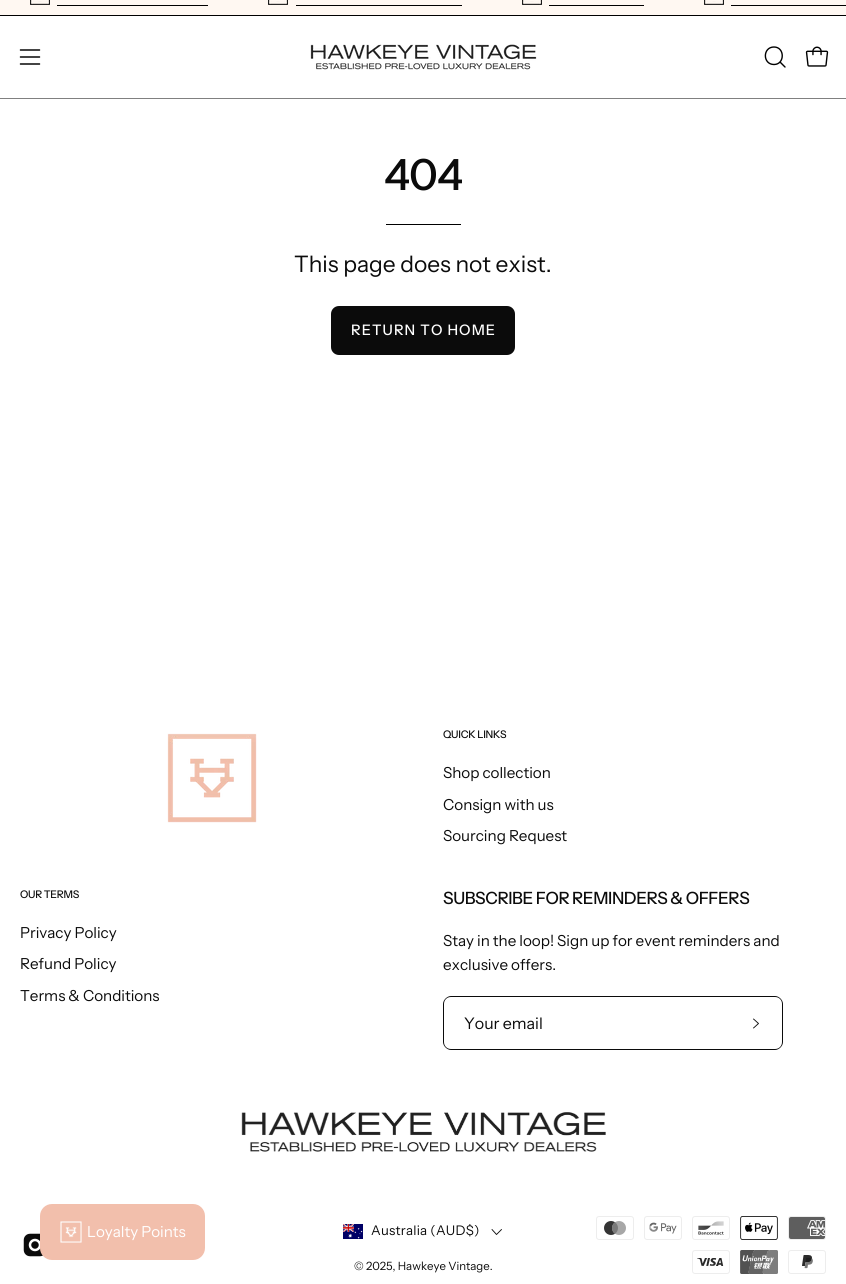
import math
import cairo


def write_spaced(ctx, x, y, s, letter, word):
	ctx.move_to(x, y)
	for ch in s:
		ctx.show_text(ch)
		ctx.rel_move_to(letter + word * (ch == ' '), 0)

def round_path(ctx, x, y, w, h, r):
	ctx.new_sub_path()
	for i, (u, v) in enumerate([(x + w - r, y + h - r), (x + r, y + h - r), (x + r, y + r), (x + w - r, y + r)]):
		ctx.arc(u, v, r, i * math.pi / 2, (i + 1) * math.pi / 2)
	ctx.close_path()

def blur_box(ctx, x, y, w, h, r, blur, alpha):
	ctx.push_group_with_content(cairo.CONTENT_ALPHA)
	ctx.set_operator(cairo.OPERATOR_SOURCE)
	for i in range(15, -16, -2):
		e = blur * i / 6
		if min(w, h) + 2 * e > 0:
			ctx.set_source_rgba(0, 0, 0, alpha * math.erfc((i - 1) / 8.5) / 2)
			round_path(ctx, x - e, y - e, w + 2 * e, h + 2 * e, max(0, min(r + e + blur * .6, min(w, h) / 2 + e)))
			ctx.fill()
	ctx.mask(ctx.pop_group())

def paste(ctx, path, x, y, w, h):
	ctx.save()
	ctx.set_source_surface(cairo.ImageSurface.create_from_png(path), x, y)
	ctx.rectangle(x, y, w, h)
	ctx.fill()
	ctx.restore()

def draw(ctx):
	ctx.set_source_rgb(1, 1, 1)
	ctx.paint()
	ctx.set_source_rgb(1, 0.969, 0.949)
	ctx.rectangle(0, 0, 846, 15)
	ctx.fill()
	ctx.set_source_rgb(0, 0, 0)
	ctx.rectangle(0, 15, 846, 1)
	ctx.fill()
	paste(ctx, 'media/1.png', 30, 0, 20, 5)
	ctx.rectangle(57, 5, 151, 1)
	ctx.fill()
	paste(ctx, 'media/1.png', 268, 0, 20, 5)
	ctx.rectangle(296, 5, 166, 1)
	ctx.fill()
	paste(ctx, 'media/1.png', 522, 0, 20, 5)
	ctx.rectangle(549, 5, 95, 1)
	ctx.fill()
	paste(ctx, 'media/1.png', 704, 0, 20, 5)
	ctx.rectangle(731, 5, 115, 1)
	ctx.fill()
	ctx.new_path()
	ctx.move_to(20.5, 57)
	ctx.line_to(39.5, 57)
	ctx.move_to(20.5, 50)
	ctx.line_to(39.5, 50)
	ctx.move_to(20.5, 64)
	ctx.line_to(39.5, 64)
	ctx.set_line_width(1.5)
	ctx.set_line_cap(cairo.LINE_CAP_ROUND)
	ctx.set_line_join(cairo.LINE_JOIN_ROUND)
	ctx.stroke()
	paste(ctx, 'media/2.png', 310, 44, 227, 26)
	ctx.new_path()
	ctx.move_to(774, 64.5)
	ctx.curve_to(785, 64.5, 785, 47, 774, 47)
	ctx.curve_to(762.5, 47, 762.5, 64.5, 774, 64.5)
	ctx.close_path()
	ctx.move_to(780, 62)
	ctx.line_to(785, 67)
	ctx.set_line_width(1.4)
	ctx.stroke()
	paste(ctx, 'media/3.png', 805, 46, 24, 21)
	paste(ctx, 'media/4.png', 167, 733, 90, 90)
	ctx.save()
	ctx.set_fill_rule(cairo.FILL_RULE_EVEN_ODD)
	ctx.new_path()
	ctx.move_to(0, 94)
	ctx.line_to(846, 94)
	ctx.line_to(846, 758)
	ctx.line_to(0, 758)
	ctx.close_path()
	ctx.move_to(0, 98)
	ctx.line_to(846, 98)
	ctx.line_to(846, 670)
	ctx.curve_to(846, 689, 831, 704, 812, 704)
	ctx.line_to(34, 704)
	ctx.curve_to(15, 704, 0, 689, 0, 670)
	ctx.close_path()
	ctx.clip()
	ctx.set_source_rgb(1, 1, 1)
	blur_box(ctx, 10, 133, 826, 586, 24, 12.5, 1)
	ctx.restore()
	ctx.set_source_rgb(0.502, 0.502, 0.502)
	ctx.rectangle(0, 98, 846, 1)
	ctx.fill()
	ctx.select_font_face('Instrument Sans Medium')
	ctx.set_font_size(43)
	ctx.set_source_rgb(0.043, 0.043, 0.043)
	write_spaced(ctx, 384, 190, '404', -1, 0)
	ctx.set_source_rgb(0, 0, 0)
	ctx.rectangle(386, 224, 75, 1)
	ctx.fill()
	ctx.select_font_face('Instrument Sans')
	ctx.set_font_size(22.75)
	ctx.set_source_rgb(0.043, 0.043, 0.043)
	ctx.move_to(294, 272)
	ctx.show_text('This page does not exist.')
	round_path(ctx, 331, 306, 184, 49, 8)
	ctx.fill()
	ctx.select_font_face('Instrument Sans Medium')
	ctx.set_font_size(14.5)
	ctx.set_source_rgb(1, 1, 1)
	write_spaced(ctx, 351, 335, 'RETURN TO HOME', 1.1, 0)
	ctx.set_font_size(10.5)
	ctx.set_source_rgb(0.043, 0.043, 0.043)
	write_spaced(ctx, 443, 738, 'QUICK LINKS', -0.25, 0)
	ctx.select_font_face('Instrument Sans')
	ctx.set_font_size(15.2)
	for x, y, s in [
		(443, 778, 'Shop collection'),
		(443, 810, 'Consign with us'),
		(443, 841, 'Sourcing Request'),
	]:
		ctx.move_to(x, y)
		ctx.show_text(s)
	ctx.select_font_face('Instrument Sans Medium')
	ctx.set_font_size(10.5)
	write_spaced(ctx, 20, 898, 'OUR TERMS', -0.25, 0)
	ctx.select_font_face('Instrument Sans')
	ctx.set_font_size(15.2)
	for x, y, s in [
		(20, 938, 'Privacy Policy'),
		(20, 969, 'Refund Policy'),
		(20, 1001, 'Terms & Conditions'),
	]:
		ctx.move_to(x, y)
		ctx.show_text(s)
	ctx.select_font_face('Instrument Sans Medium')
	ctx.set_font_size(16.9)
	write_spaced(ctx, 443, 904, 'SUBSCRIBE FOR REMINDERS & OFFERS', -0.4, 0)
	ctx.select_font_face('Instrument Sans')
	ctx.set_font_size(15.2)
	ctx.move_to(443, 946)
	ctx.show_text('Stay in the loop! Sign up for event reminders and')
	ctx.move_to(443, 970)
	ctx.show_text('exclusive offers.')
	ctx.set_fill_rule(cairo.FILL_RULE_EVEN_ODD)
	ctx.new_path()
	ctx.move_to(451, 996)
	ctx.line_to(729, 996)
	ctx.line_to(729, 1050)
	ctx.line_to(451, 1050)
	ctx.curve_to(447, 1050, 443, 1046, 443, 1042)
	ctx.line_to(443, 1004)
	ctx.curve_to(443, 1000, 447, 996, 451, 996)
	ctx.close_path()
	ctx.move_to(451, 997)
	ctx.line_to(729, 997)
	ctx.line_to(729, 1049)
	ctx.line_to(451, 1049)
	ctx.curve_to(447, 1049, 444, 1046, 444, 1042)
	ctx.line_to(444, 1004)
	ctx.curve_to(444, 1000, 447, 997, 451, 997)
	ctx.close_path()
	ctx.fill()
	ctx.set_font_size(16)
	ctx.move_to(464, 1029)
	ctx.show_text('Your email')
	ctx.new_path()
	ctx.move_to(729, 996)
	ctx.line_to(775, 996)
	ctx.curve_to(779, 996, 783, 1000, 783, 1004)
	ctx.line_to(783, 1042)
	ctx.curve_to(783, 1046, 779, 1050, 775, 1050)
	ctx.line_to(729, 1050)
	ctx.close_path()
	ctx.move_to(729, 997)
	ctx.line_to(775, 997)
	ctx.curve_to(779, 997, 782, 1000, 782, 1004)
	ctx.line_to(782, 1042)
	ctx.curve_to(782, 1046, 779, 1049, 775, 1049)
	ctx.line_to(729, 1049)
	ctx.close_path()
	ctx.fill()
	ctx.new_path()
	ctx.move_to(753.5, 1019)
	ctx.line_to(758.5, 1023.5)
	ctx.line_to(753.5, 1028)
	ctx.set_line_width(0.9)
	ctx.stroke()
	paste(ctx, 'media/5.png', 241, 1112, 365, 40)
	paste(ctx, 'media/6.png', 23, 1233, 21, 24)
	paste(ctx, 'media/7.png', 343, 1224, 20, 15)
	ctx.set_font_size(13.25)
	write_spaced(ctx, 371, 1235, 'Australia (AUD$)', 0.25, 0)
	ctx.new_path()
	ctx.move_to(501.5, 1229.5)
	ctx.line_to(496.5, 1234.5)
	ctx.line_to(492, 1229.5)
	ctx.stroke()
	ctx.set_font_size(11.4)
	ctx.move_to(354, 1270)
	ctx.show_text('© 2025, Hawkeye Vintage.')
	paste(ctx, 'media/8.png', 596, 1216, 38, 24)
	paste(ctx, 'media/9.png', 644, 1216, 38, 24)
	paste(ctx, 'media/10.png', 692, 1216, 38, 24)
	paste(ctx, 'media/11.png', 740, 1216, 38, 24)
	paste(ctx, 'media/12.png', 788, 1216, 38, 24)
	paste(ctx, 'media/13.png', 692, 1250, 38, 24)
	paste(ctx, 'media/14.png', 740, 1250, 38, 24)
	paste(ctx, 'media/15.png', 788, 1250, 38, 24)
	ctx.set_source_rgb(0.949, 0.749, 0.675)
	round_path(ctx, 40, 1204, 165, 56, 12)
	ctx.fill()
	paste(ctx, 'media/16.png', 60, 1221, 22, 22)
	ctx.set_font_size(15.2)
	ctx.set_source_rgb(1, 1, 1)
	ctx.move_to(87, 1237)
	ctx.show_text('Loyalty Points')


surface = cairo.ImageSurface(cairo.FORMAT_RGB24, 846, 1284)
ctx = cairo.Context(surface)
options = cairo.FontOptions()
options.set_hint_metrics(cairo.HINT_METRICS_OFF)
options.set_hint_style(cairo.HINT_STYLE_NONE)
ctx.set_font_options(options)
ctx.set_miter_limit(4)
draw(ctx)
surface.write_to_png('image.png')
